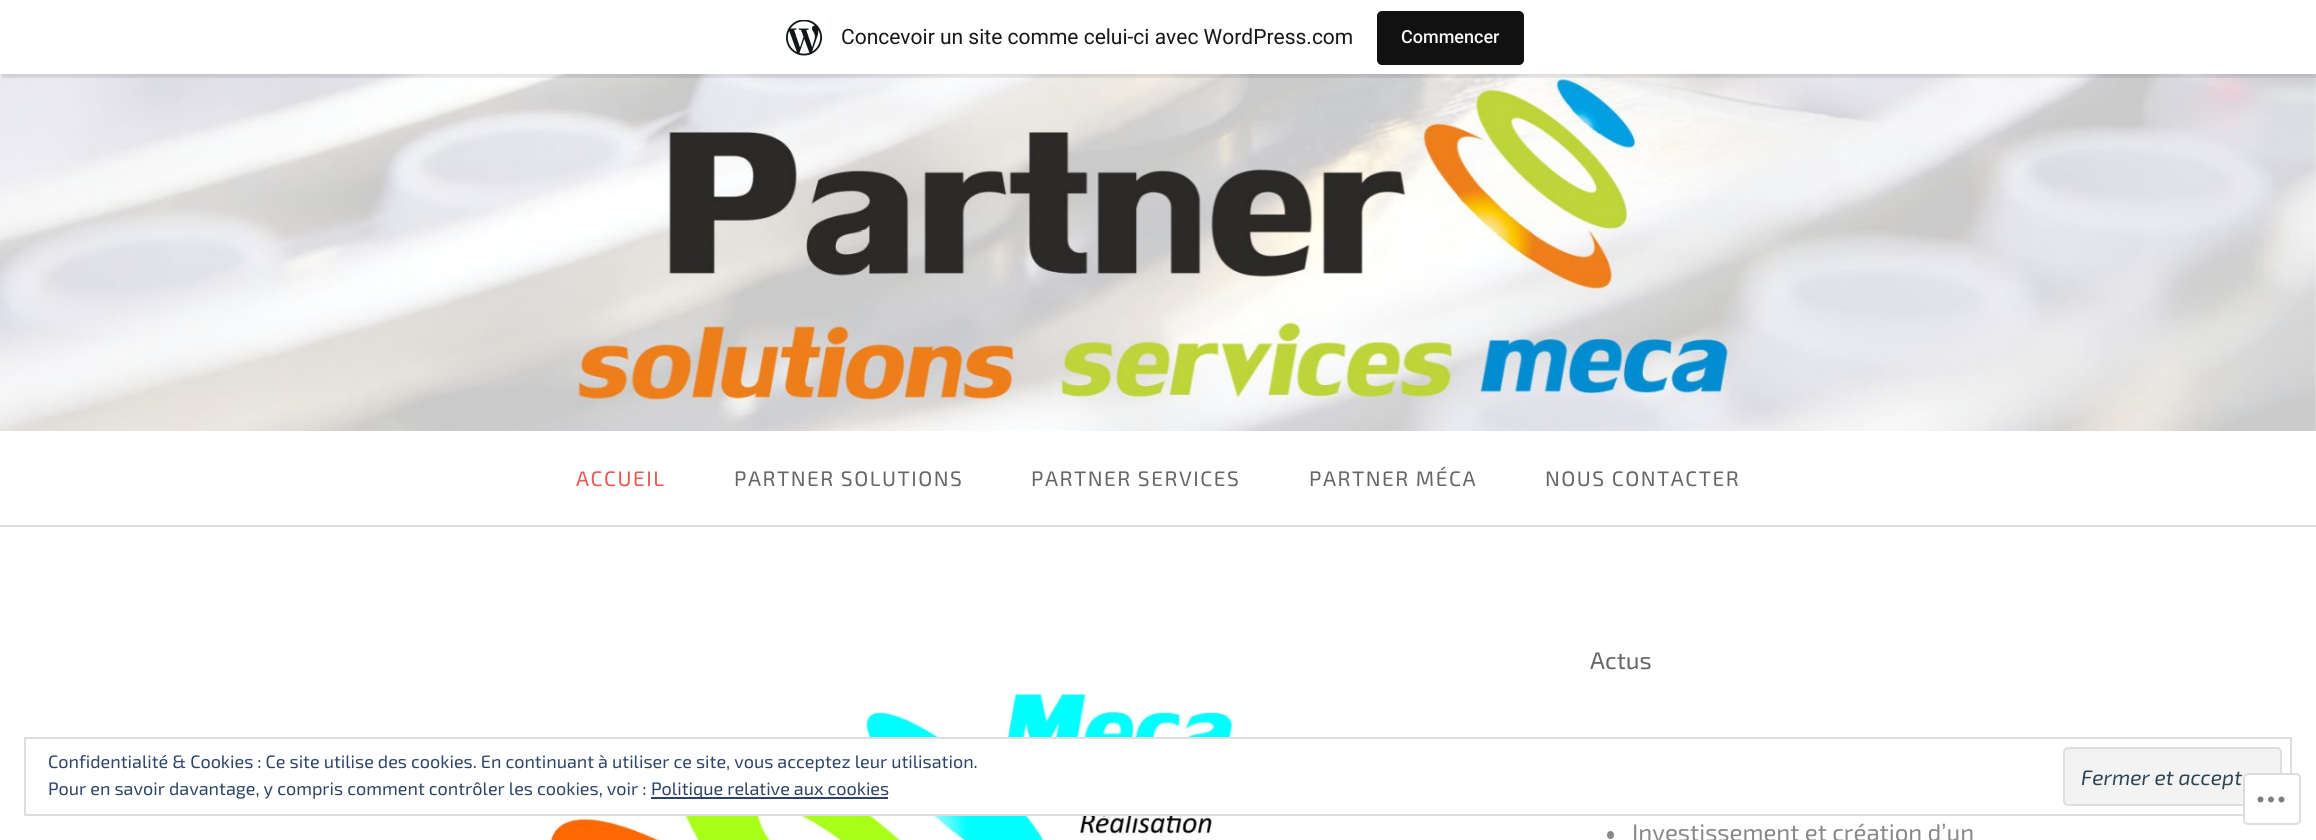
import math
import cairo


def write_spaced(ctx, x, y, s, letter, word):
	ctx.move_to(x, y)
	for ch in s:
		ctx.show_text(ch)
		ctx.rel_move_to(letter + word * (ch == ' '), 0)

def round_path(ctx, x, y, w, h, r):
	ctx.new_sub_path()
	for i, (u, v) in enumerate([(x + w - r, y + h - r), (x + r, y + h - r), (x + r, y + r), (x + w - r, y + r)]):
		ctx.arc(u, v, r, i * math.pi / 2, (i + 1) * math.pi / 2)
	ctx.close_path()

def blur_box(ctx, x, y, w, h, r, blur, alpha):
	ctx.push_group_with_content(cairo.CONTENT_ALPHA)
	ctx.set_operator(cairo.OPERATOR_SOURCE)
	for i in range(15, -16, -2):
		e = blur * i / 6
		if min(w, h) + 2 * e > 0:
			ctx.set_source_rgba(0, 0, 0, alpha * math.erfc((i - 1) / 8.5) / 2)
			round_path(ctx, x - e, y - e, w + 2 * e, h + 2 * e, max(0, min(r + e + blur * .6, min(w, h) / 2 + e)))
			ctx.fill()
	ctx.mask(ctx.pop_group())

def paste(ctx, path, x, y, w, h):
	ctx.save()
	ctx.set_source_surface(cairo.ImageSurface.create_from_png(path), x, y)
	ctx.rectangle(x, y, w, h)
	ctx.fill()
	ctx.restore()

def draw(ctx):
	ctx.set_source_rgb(1, 1, 1)
	ctx.paint()
	paste(ctx, 'media/2.png', 0, 74, 2316, 357)
	ctx.set_source_rgb(0, 0, 0)
	blur_box(ctx, 0, 2, 2316, 73, 0, 1.5, 0.05)
	ctx.set_source_rgba(0, 0, 0, 0.08)
	ctx.new_path()
	ctx.move_to(2, 74)
	ctx.line_to(2, 78)
	ctx.line_to(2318, 78)
	ctx.line_to(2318, 5)
	ctx.line_to(2316, 5)
	ctx.line_to(2316, 74)
	ctx.close_path()
	ctx.fill()
	ctx.set_source_rgb(1, 1, 1)
	ctx.rectangle(0, 1, 2316, 73)
	ctx.fill()
	paste(ctx, 'media/1.png', 786, 20, 36, 36)
	ctx.select_font_face('Roboto')
	ctx.set_font_size(21)
	ctx.set_source_rgb(0.09, 0.09, 0.09)
	ctx.move_to(841, 44)
	ctx.show_text('Concevoir un site comme celui-ci avec WordPress.com')
	ctx.set_source_rgb(0.067, 0.067, 0.067)
	round_path(ctx, 1377, 11, 147, 54, 5)
	ctx.fill()
	ctx.select_font_face('Roboto Medium')
	ctx.set_font_size(18)
	ctx.set_source_rgb(0.965, 0.969, 0.969)
	ctx.move_to(1401, 43)
	ctx.show_text('Commencer')
	ctx.set_source_rgb(0.867, 0.867, 0.867)
	ctx.rectangle(0, 525, 2316, 2)
	ctx.fill()
	ctx.select_font_face('Exo 2')
	ctx.set_font_size(21)
	ctx.set_source_rgb(0.91, 0.333, 0.306)
	write_spaced(ctx, 576, 486, 'ACCUEIL', 1.5, 0)
	ctx.set_source_rgb(0.4, 0.4, 0.4)
	for x, y, s in [
		(734, 486, 'PARTNER SOLUTIONS'),
		(1031, 486, 'PARTNER SERVICES'),
		(1309, 486, 'PARTNER MÉCA'),
		(1545, 486, 'NOUS CONTACTER'),
	]:
		write_spaced(ctx, x, y, s, 1.5, 0)
	paste(ctx, 'media/3.png', 550, 694, 855, 146)
	ctx.set_font_size(24)
	ctx.move_to(1590, 669)
	ctx.show_text('Actus')
	ctx.set_source_rgb(0.533, 0.533, 0.533)
	round_path(ctx, 1607, 831, 7, 8, 3.5)
	ctx.fill()
	ctx.move_to(1632, 841)
	ctx.show_text('Investissement et création d’un')
	ctx.set_source_rgb(1, 1, 1)
	ctx.rectangle(674, 739, 731, 75)
	ctx.fill()
	ctx.rectangle(25, 738, 2266, 77)
	ctx.set_source_rgb(0.871, 0.871, 0.871)
	ctx.stroke()
	ctx.set_font_size(18)
	ctx.set_source_rgb(0.18, 0.267, 0.404)
	ctx.move_to(48, 768)
	ctx.show_text('Confidentialité & Cookies : Ce site utilise des cookies. En continuant à utiliser ce site, vous acceptez leur utilisation.')
	ctx.move_to(48, 795)
	ctx.show_text('Pour en savoir davantage, y compris comment contrôler les cookies, voir :')
	ctx.rectangle(651, 797, 237, 2)
	ctx.fill()
	ctx.move_to(651, 795)
	ctx.show_text('Politique relative aux cookies')
	ctx.set_source_rgb(0.953, 0.953, 0.953)
	round_path(ctx, 2064, 748, 217, 57, 4)
	ctx.fill_preserve()
	ctx.set_source_rgb(0.871, 0.871, 0.871)
	ctx.stroke()
	ctx.select_font_face('Exo 2', cairo.FONT_SLANT_ITALIC)
	ctx.set_font_size(21)
	ctx.set_source_rgb(0.18, 0.267, 0.325)
	ctx.move_to(2081, 785)
	ctx.show_text('Fermer et accept')
	ctx.set_source_rgba(1, 1, 1, 0.98)
	round_path(ctx, 2243, 773, 58, 52, 5)
	ctx.fill()
	round_path(ctx, 2244, 774, 56, 50, 4)
	ctx.set_source_rgba(0.863, 0.863, 0.871, 0.98)
	ctx.stroke()
	paste(ctx, 'media/4.png', 2257, 796, 28, 7)


surface = cairo.ImageSurface(cairo.FORMAT_RGB24, 2316, 840)
ctx = cairo.Context(surface)
options = cairo.FontOptions()
options.set_hint_metrics(cairo.HINT_METRICS_OFF)
options.set_hint_style(cairo.HINT_STYLE_NONE)
ctx.set_font_options(options)
ctx.set_miter_limit(4)
draw(ctx)
surface.write_to_png('image.png')
